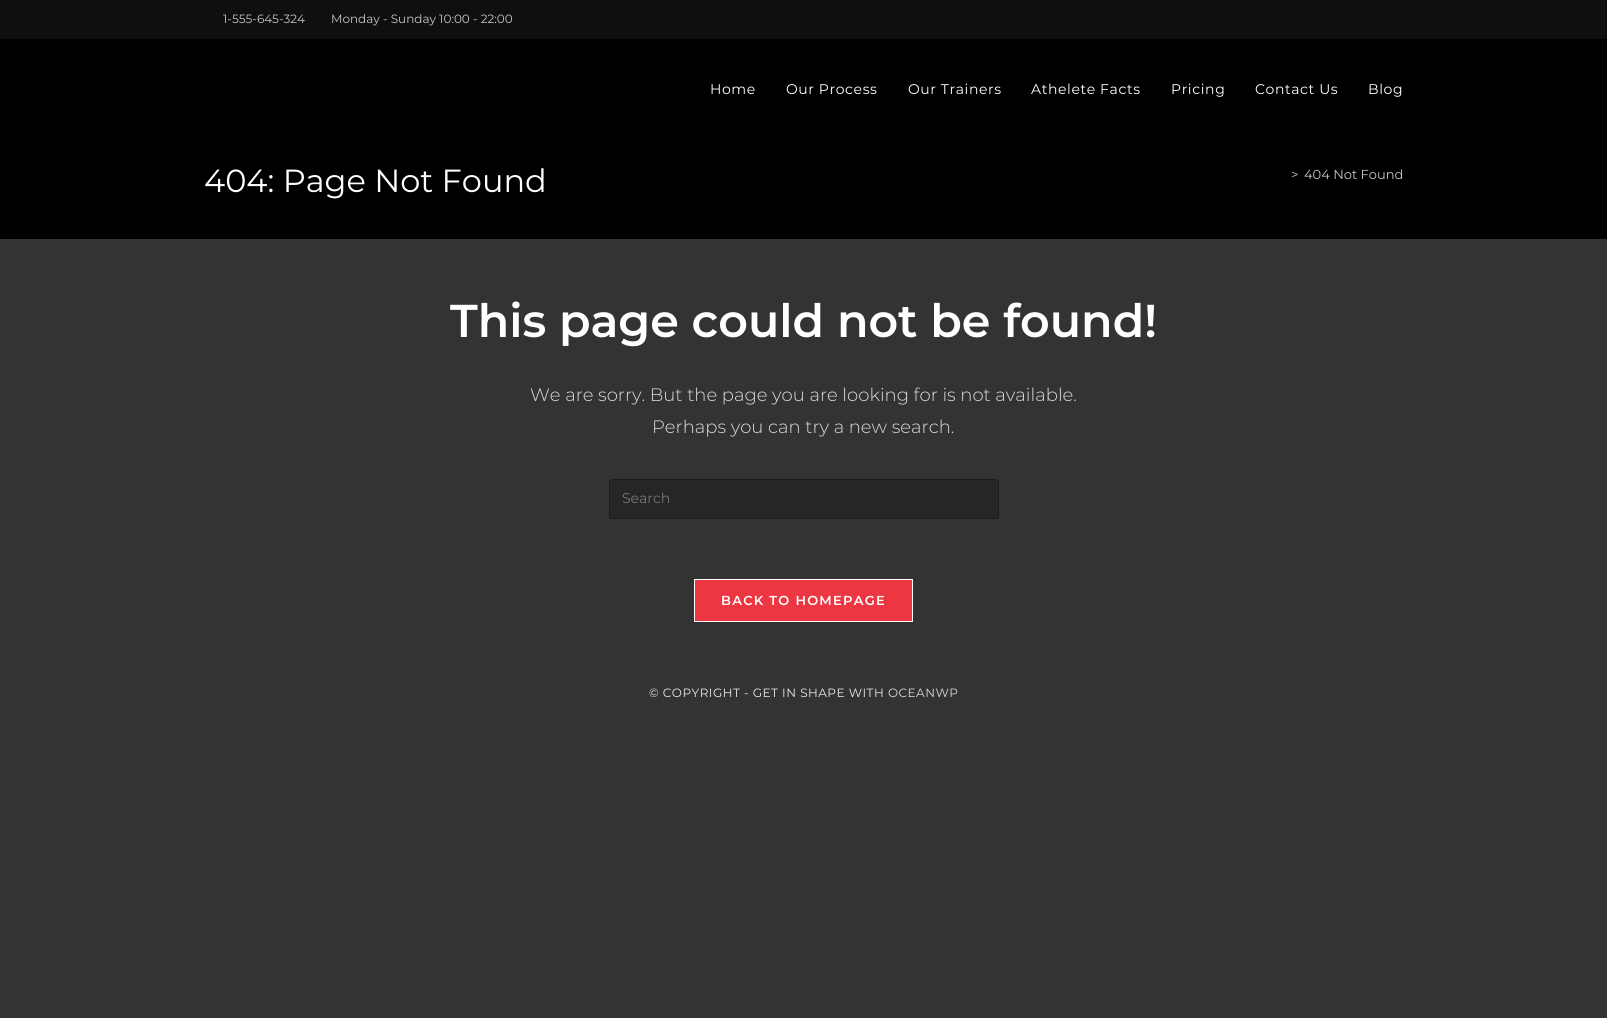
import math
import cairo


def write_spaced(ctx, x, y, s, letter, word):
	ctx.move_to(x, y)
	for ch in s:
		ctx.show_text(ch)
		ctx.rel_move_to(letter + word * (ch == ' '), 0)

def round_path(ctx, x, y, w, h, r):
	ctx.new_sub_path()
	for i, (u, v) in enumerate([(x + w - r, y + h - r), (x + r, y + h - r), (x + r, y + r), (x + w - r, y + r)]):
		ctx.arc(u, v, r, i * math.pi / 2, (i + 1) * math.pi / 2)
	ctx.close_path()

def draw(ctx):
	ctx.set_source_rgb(0.2, 0.2, 0.2)
	ctx.paint()
	ctx.set_source_rgb(0.059, 0.059, 0.059)
	ctx.rectangle(0, 0, 1607, 39)
	ctx.fill()
	ctx.select_font_face('Montserrat')
	ctx.set_font_size(12)
	ctx.set_source_rgb(0.776, 0.776, 0.776)
	ctx.move_to(223, 23)
	ctx.show_text('1-555-645-324')
	ctx.move_to(331, 23)
	ctx.show_text('Monday - Sunday 10:00 - 22:00')
	ctx.set_source_rgb(0, 0, 0)
	ctx.rectangle(0, 39, 1607, 200)
	ctx.fill()
	ctx.set_font_size(14)
	ctx.set_source_rgb(1, 1, 1)
	for x, y, s in [
		(710, 94, 'Home'),
		(786, 94, 'Our Process'),
		(908, 94, 'Our Trainers'),
		(1031, 94, 'Athelete Facts'),
		(1171, 94, 'Pricing'),
		(1255, 94, 'Contact Us'),
		(1368, 94, 'Blog'),
	]:
		write_spaced(ctx, x, y, s, 0.6, 0)
	ctx.set_font_size(32)
	ctx.move_to(204, 192)
	ctx.show_text('404: Page Not Found')
	ctx.set_font_size(13)
	ctx.set_source_rgb(0.776, 0.776, 0.776)
	ctx.move_to(1291, 179)
	ctx.show_text('>')
	ctx.move_to(1304, 179)
	ctx.show_text('404 Not Found')
	ctx.select_font_face('Montserrat SemiBold')
	ctx.set_font_size(46)
	ctx.set_source_rgb(1, 1, 1)
	ctx.move_to(450, 337)
	ctx.show_text('This page could not be found!')
	ctx.select_font_face('Montserrat Light')
	ctx.set_font_size(18)
	ctx.set_source_rgb(0.859, 0.859, 0.859)
	ctx.move_to(530, 401)
	ctx.show_text('We are sorry. But the page you are looking for is not available.')
	ctx.move_to(652, 433)
	ctx.show_text('Perhaps you can try a new search.')
	ctx.set_source_rgb(0.149, 0.149, 0.149)
	round_path(ctx, 609.5, 479.5, 389, 39, 2.5)
	ctx.fill_preserve()
	ctx.set_source_rgb(0.11, 0.11, 0.11)
	ctx.set_line_width(1)
	ctx.stroke()
	ctx.select_font_face('Montserrat')
	ctx.set_font_size(14)
	ctx.set_source_rgb(0.459, 0.459, 0.459)
	ctx.move_to(622, 503)
	ctx.show_text('Search')
	ctx.set_source_rgb(0.925, 0.212, 0.259)
	ctx.rectangle(694.5, 579.5, 218, 42)
	ctx.fill_preserve()
	ctx.set_source_rgb(1, 1, 1)
	ctx.stroke()
	ctx.select_font_face('Montserrat SemiBold')
	ctx.set_font_size(13)
	write_spaced(ctx, 721, 605, 'BACK TO HOMEPAGE', 1.25, 0)
	ctx.select_font_face('Montserrat')
	ctx.set_font_size(12)
	ctx.set_source_rgb(0.918, 0.918, 0.918)
	write_spaced(ctx, 649, 697, '© COPYRIGHT - GET IN SHAPE WITH', 0.5, 0)
	ctx.set_source_rgb(0.859, 0.859, 0.859)
	write_spaced(ctx, 888, 697, 'OCEANWP', 0.5, 0)


surface = cairo.ImageSurface(cairo.FORMAT_RGB24, 1607, 1018)
ctx = cairo.Context(surface)
options = cairo.FontOptions()
options.set_hint_metrics(cairo.HINT_METRICS_OFF)
options.set_hint_style(cairo.HINT_STYLE_NONE)
ctx.set_font_options(options)
ctx.set_miter_limit(4)
draw(ctx)
surface.write_to_png('image.png')
